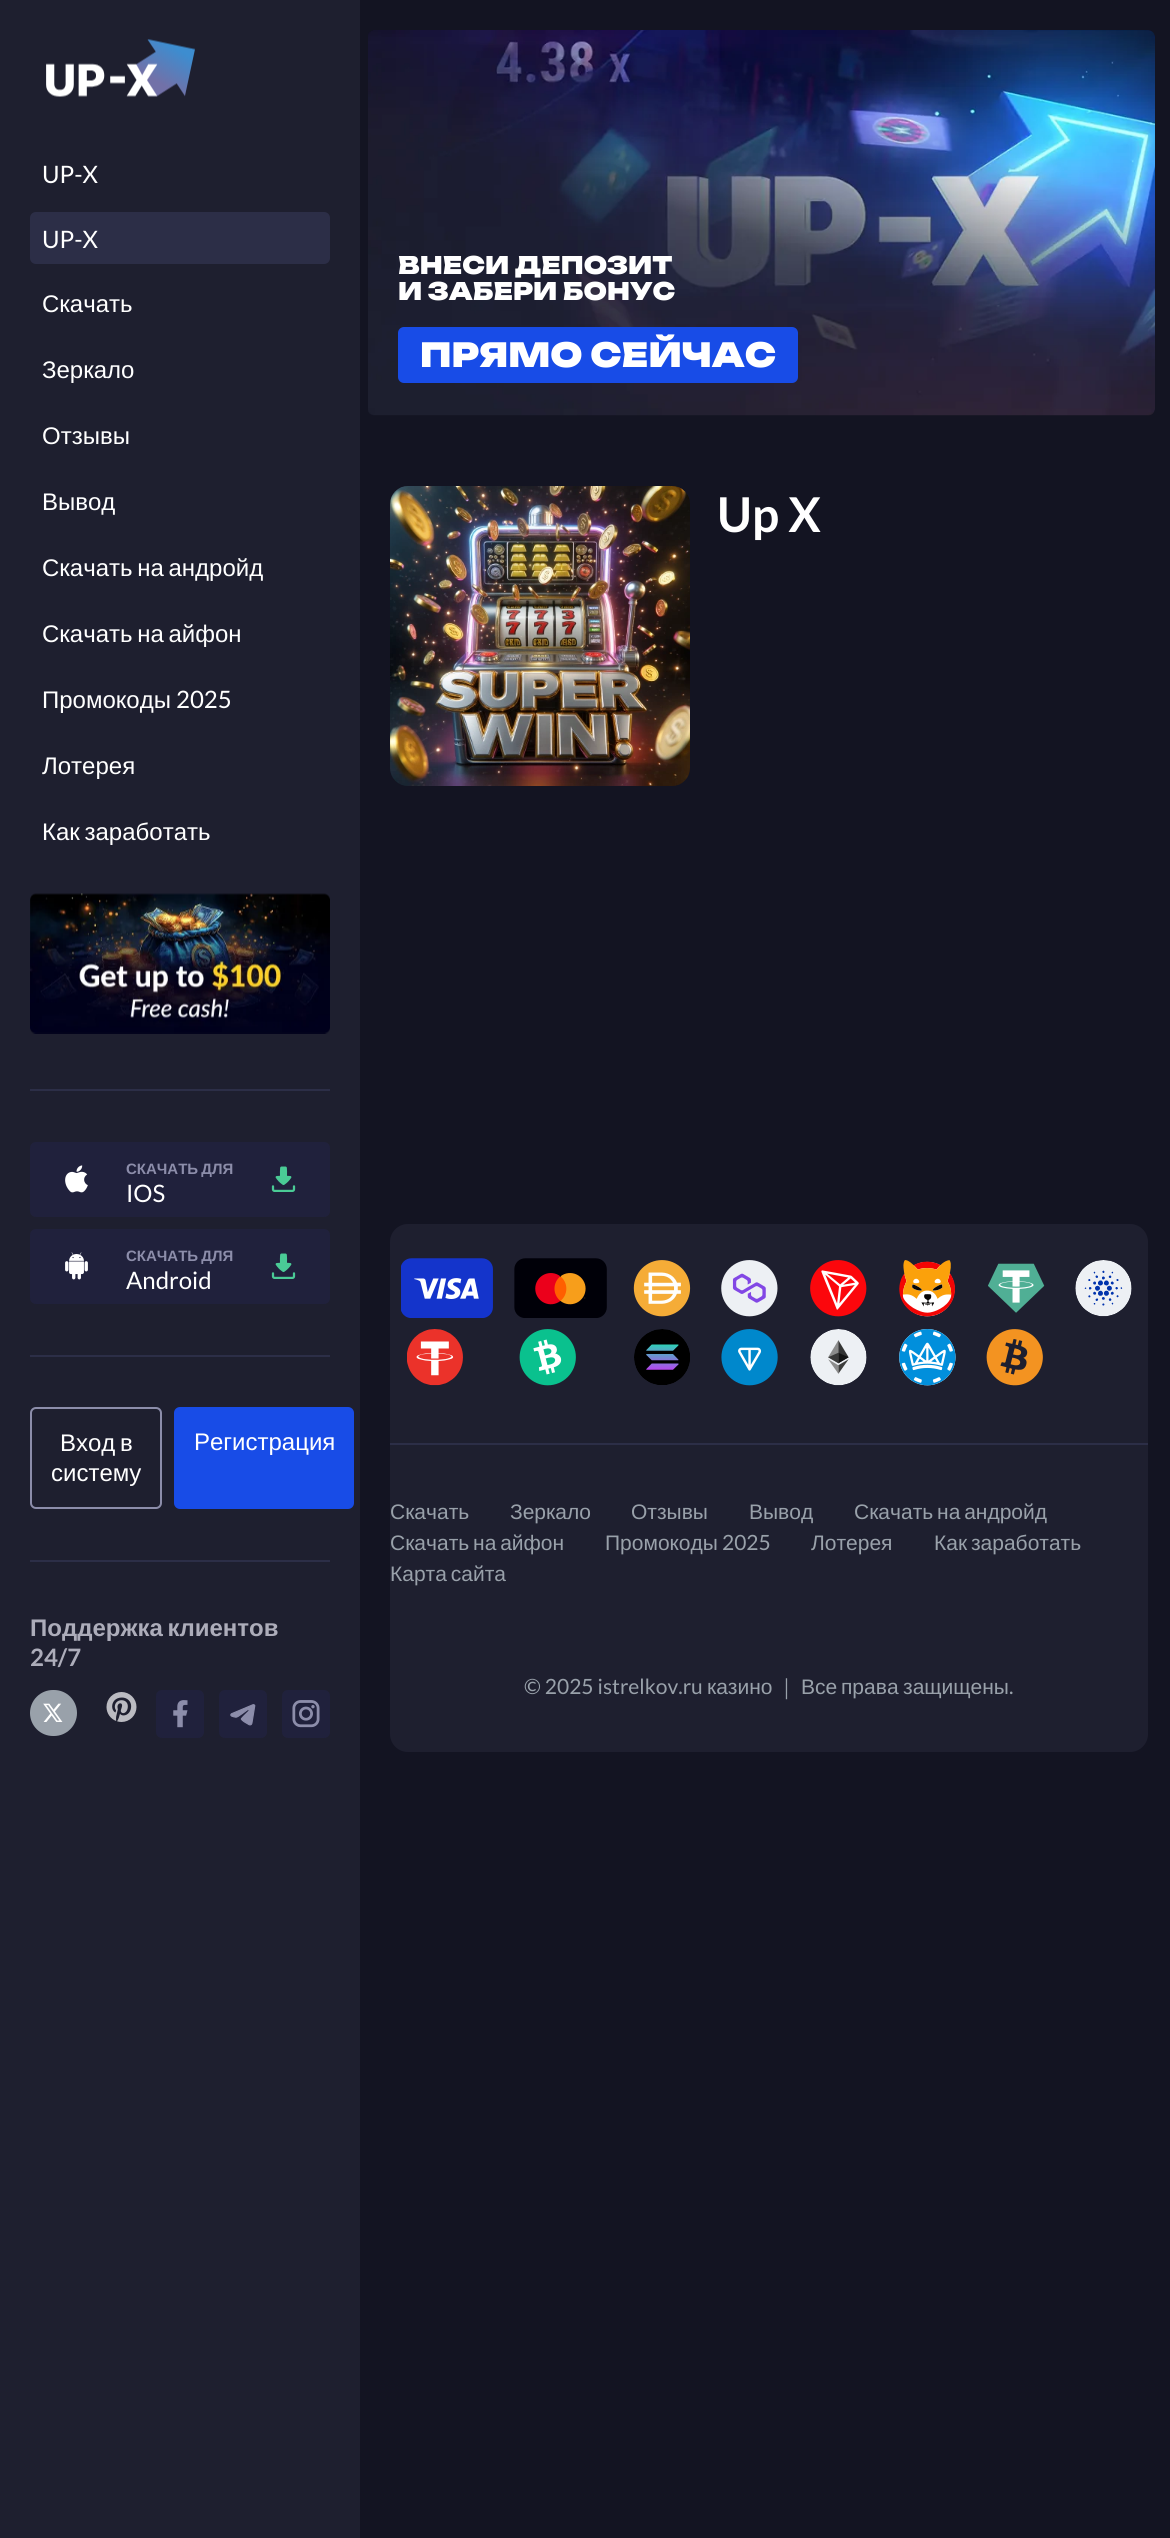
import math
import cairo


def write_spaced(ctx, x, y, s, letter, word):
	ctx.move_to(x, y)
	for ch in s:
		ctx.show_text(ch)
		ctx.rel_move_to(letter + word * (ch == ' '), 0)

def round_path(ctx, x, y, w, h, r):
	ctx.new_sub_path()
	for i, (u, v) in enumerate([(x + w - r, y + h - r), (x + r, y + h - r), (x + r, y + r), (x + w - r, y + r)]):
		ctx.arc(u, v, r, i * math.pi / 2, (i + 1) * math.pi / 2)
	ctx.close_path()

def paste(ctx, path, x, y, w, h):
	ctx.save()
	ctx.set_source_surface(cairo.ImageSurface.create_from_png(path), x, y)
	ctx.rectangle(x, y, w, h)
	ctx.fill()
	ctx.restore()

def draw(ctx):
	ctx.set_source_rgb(0.078, 0.082, 0.133)
	ctx.paint()
	ctx.set_source_rgb(0.118, 0.122, 0.184)
	ctx.rectangle(0, 0, 360, 2538)
	ctx.fill()
	paste(ctx, 'media/1.png', 46, 39, 149, 58)
	ctx.select_font_face('Lato')
	ctx.set_font_size(24)
	ctx.set_source_rgb(1, 1, 1)
	ctx.move_to(42, 183)
	ctx.show_text('UP-X')
	ctx.set_source_rgb(0.173, 0.18, 0.278)
	round_path(ctx, 30, 212, 300, 52, 6)
	ctx.fill()
	ctx.set_source_rgb(1, 1, 1)
	ctx.move_to(42, 248)
	ctx.show_text('UP-X')
	ctx.select_font_face('Liberation Sans')
	for x, y, s in [
		(42, 312, 'Скачать'),
		(42, 378, 'Зеркало'),
		(42, 444, 'Отзывы'),
		(42, 510, 'Вывод'),
	]:
		ctx.move_to(x, y)
		ctx.show_text(s)
	write_spaced(ctx, 42, 576, 'Скачать на андройд', 0, -2)
	write_spaced(ctx, 42, 642, 'Скачать на айфон', 0, -2)
	ctx.move_to(42, 708)
	ctx.show_text('Промокоды')
	ctx.select_font_face('Lato')
	ctx.move_to(176, 708)
	ctx.show_text('2025')
	ctx.select_font_face('Liberation Sans')
	ctx.move_to(42, 774)
	ctx.show_text('Лотерея')
	write_spaced(ctx, 42, 840, 'Как заработать', 0, -2)
	paste(ctx, 'media/2.png', 30, 893, 300, 141)
	ctx.set_source_rgb(0.173, 0.18, 0.278)
	ctx.rectangle(30, 1089, 300, 2)
	ctx.fill()
	ctx.set_source_rgb(0.125, 0.129, 0.235)
	round_path(ctx, 30, 1142, 300, 75, 6)
	ctx.fill()
	paste(ctx, 'media/3.png', 65, 1165, 23, 28)
	ctx.select_font_face('Liberation Sans', cairo.FONT_SLANT_NORMAL, cairo.FONT_WEIGHT_BOLD)
	ctx.set_font_size(15)
	ctx.set_source_rgb(0.549, 0.553, 0.667)
	write_spaced(ctx, 126, 1174, 'СКАЧАТЬ ДЛЯ', 0, -1)
	ctx.select_font_face('Lato')
	ctx.set_font_size(24)
	ctx.set_source_rgb(1, 1, 1)
	ctx.move_to(126, 1202)
	ctx.show_text('IOS')
	paste(ctx, 'media/4.png', 271, 1166, 25, 26)
	ctx.set_source_rgb(0.125, 0.129, 0.235)
	round_path(ctx, 30, 1229, 300, 75, 6)
	ctx.fill()
	paste(ctx, 'media/5.png', 65, 1252, 23, 28)
	ctx.select_font_face('Liberation Sans', cairo.FONT_SLANT_NORMAL, cairo.FONT_WEIGHT_BOLD)
	ctx.set_font_size(15)
	ctx.set_source_rgb(0.549, 0.553, 0.667)
	write_spaced(ctx, 126, 1261, 'СКАЧАТЬ ДЛЯ', 0, -1)
	ctx.select_font_face('Lato')
	ctx.set_font_size(24)
	ctx.set_source_rgb(1, 1, 1)
	ctx.move_to(126, 1289)
	ctx.show_text('Android')
	paste(ctx, 'media/4.png', 271, 1253, 25, 26)
	ctx.set_source_rgb(0.173, 0.18, 0.278)
	ctx.rectangle(30, 1355, 300, 2)
	ctx.fill()
	round_path(ctx, 31, 1408, 130, 100, 5)
	ctx.set_source_rgb(0.549, 0.553, 0.667)
	ctx.stroke()
	ctx.select_font_face('Liberation Sans')
	ctx.set_source_rgb(1, 1, 1)
	write_spaced(ctx, 60, 1451, 'Вход в', 0, -2)
	ctx.move_to(51, 1481)
	ctx.show_text('систему')
	ctx.set_source_rgb(0.094, 0.298, 0.906)
	round_path(ctx, 174, 1407, 180, 102, 6)
	ctx.fill()
	ctx.set_source_rgb(1, 1, 1)
	ctx.move_to(194, 1450)
	ctx.show_text('Регистрация')
	ctx.set_source_rgb(0.173, 0.18, 0.278)
	ctx.rectangle(30, 1560, 300, 2)
	ctx.fill()
	ctx.select_font_face('Liberation Sans', cairo.FONT_SLANT_NORMAL, cairo.FONT_WEIGHT_BOLD)
	ctx.set_source_rgb(0.678, 0.678, 0.729)
	write_spaced(ctx, 30, 1636, 'Поддержка клиентов', 0, -2)
	ctx.select_font_face('Lato', cairo.FONT_SLANT_NORMAL, cairo.FONT_WEIGHT_BOLD)
	ctx.move_to(30, 1666)
	ctx.show_text('24/7')
	paste(ctx, 'media/6.png', 30, 1690, 47, 46)
	paste(ctx, 'media/7.png', 106, 1692, 31, 30)
	paste(ctx, 'media/8.png', 156, 1690, 48, 48)
	paste(ctx, 'media/9.png', 219, 1690, 48, 48)
	paste(ctx, 'media/10.png', 282, 1690, 48, 48)
	paste(ctx, 'media/11.png', 368, 30, 787, 386)
	ctx.select_font_face('Unbounded Black')
	ctx.set_source_rgb(1, 1, 1)
	ctx.move_to(398, 274)
	ctx.show_text('ВНЕСИ ДЕПОЗИТ')
	ctx.move_to(398, 300)
	ctx.show_text('И ЗАБЕРИ БОНУС')
	ctx.set_source_rgb(0.094, 0.298, 0.906)
	round_path(ctx, 398, 327, 400, 56, 6)
	ctx.fill()
	ctx.set_font_size(33)
	ctx.set_source_rgb(1, 1, 1)
	ctx.move_to(420, 367)
	ctx.show_text('ПРЯМО СЕЙЧАС')
	paste(ctx, 'media/12.png', 390, 486, 300, 300)
	ctx.select_font_face('Lato', cairo.FONT_SLANT_NORMAL, cairo.FONT_WEIGHT_BOLD)
	ctx.set_font_size(48)
	ctx.move_to(717, 532)
	ctx.show_text('Up X')
	ctx.set_source_rgb(0.118, 0.122, 0.184)
	round_path(ctx, 390, 1224, 758, 528, 18)
	ctx.fill()
	paste(ctx, 'media/13.png', 401, 1258, 92, 60)
	paste(ctx, 'media/14.png', 514, 1258, 93, 60)
	paste(ctx, 'media/15.png', 633, 1260, 58, 57)
	paste(ctx, 'media/16.png', 721, 1260, 57, 57)
	paste(ctx, 'media/17.png', 810, 1260, 57, 57)
	paste(ctx, 'media/18.png', 899, 1260, 56, 57)
	paste(ctx, 'media/19.png', 988, 1263, 57, 50)
	paste(ctx, 'media/20.png', 1075, 1260, 57, 57)
	paste(ctx, 'media/21.png', 407, 1329, 56, 57)
	paste(ctx, 'media/22.png', 519, 1329, 57, 57)
	paste(ctx, 'media/23.png', 634, 1329, 56, 56)
	paste(ctx, 'media/24.png', 721, 1329, 57, 57)
	paste(ctx, 'media/25.png', 810, 1329, 57, 57)
	paste(ctx, 'media/26.png', 899, 1329, 57, 57)
	paste(ctx, 'media/27.png', 986, 1329, 57, 57)
	ctx.set_source_rgb(0.173, 0.18, 0.278)
	ctx.rectangle(390, 1443, 758, 2)
	ctx.fill()
	ctx.select_font_face('Liberation Sans')
	ctx.set_font_size(21)
	ctx.set_source_rgb(0.6, 0.631, 0.667)
	for x, y, s in [
		(390, 1519, 'Скачать'),
		(510, 1519, 'Зеркало'),
		(631, 1519, 'Отзывы'),
		(749, 1519, 'Вывод'),
	]:
		ctx.move_to(x, y)
		ctx.show_text(s)
	write_spaced(ctx, 854, 1519, 'Скачать на андройд', 0, -2)
	write_spaced(ctx, 390, 1550, 'Скачать на айфон', 0, -2)
	ctx.move_to(605, 1550)
	ctx.show_text('Промокоды')
	ctx.select_font_face('Lato')
	ctx.move_to(722, 1550)
	ctx.show_text('2025')
	ctx.select_font_face('Liberation Sans')
	ctx.move_to(811, 1550)
	ctx.show_text('Лотерея')
	write_spaced(ctx, 934, 1550, 'Как заработать', 0, -2)
	write_spaced(ctx, 390, 1581, 'Карта сайта', 0, -2)
	ctx.select_font_face('Lato')
	ctx.move_to(524, 1694)
	ctx.show_text('© 2025 istrelkov.ru')
	ctx.select_font_face('Liberation Sans')
	ctx.move_to(707, 1694)
	ctx.show_text('казино')
	ctx.select_font_face('WenQuanYi Zen Hei Medium')
	ctx.move_to(776, 1694)
	ctx.show_text('｜')
	ctx.select_font_face('Liberation Sans')
	for x, y, s in [
		(801, 1694, 'Все'),
		(841, 1694, 'права'),
		(903, 1694, 'защищены'),
	]:
		ctx.move_to(x, y)
		ctx.show_text(s)
	ctx.select_font_face('Lato')
	ctx.move_to(1009, 1694)
	ctx.show_text('.')


surface = cairo.ImageSurface(cairo.FORMAT_RGB24, 1170, 2538)
ctx = cairo.Context(surface)
options = cairo.FontOptions()
options.set_hint_metrics(cairo.HINT_METRICS_OFF)
options.set_hint_style(cairo.HINT_STYLE_NONE)
ctx.set_font_options(options)
ctx.set_miter_limit(4)
draw(ctx)
surface.write_to_png('image.png')
